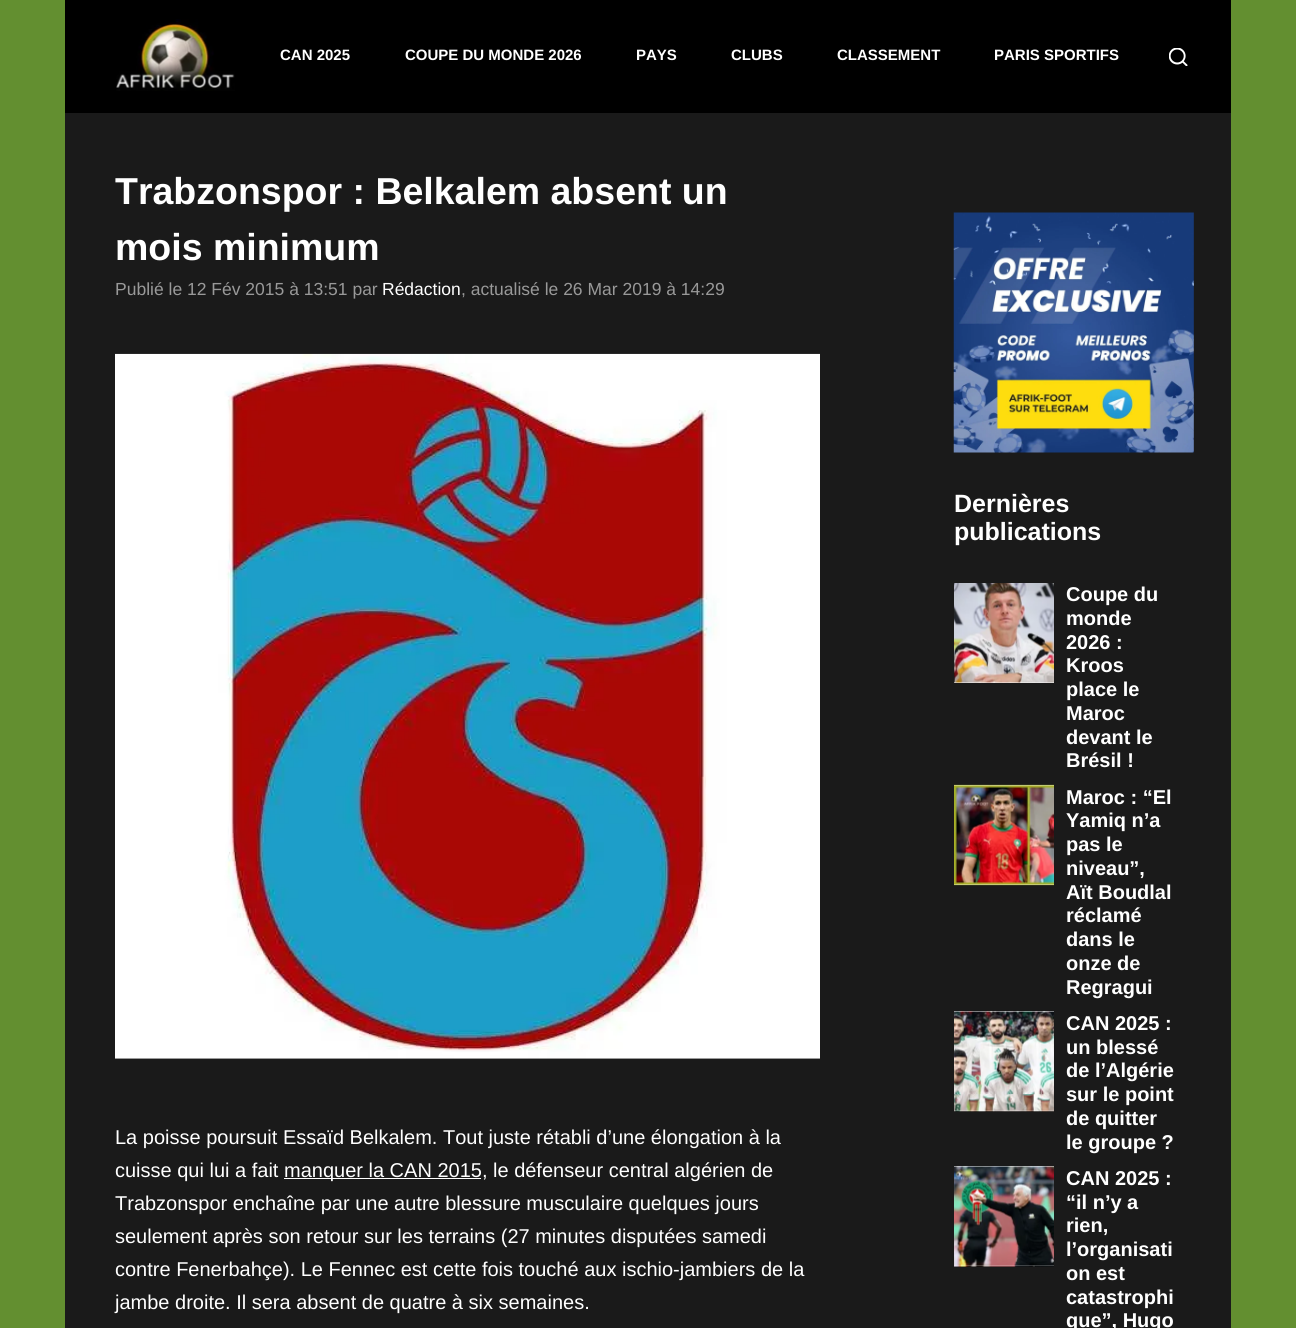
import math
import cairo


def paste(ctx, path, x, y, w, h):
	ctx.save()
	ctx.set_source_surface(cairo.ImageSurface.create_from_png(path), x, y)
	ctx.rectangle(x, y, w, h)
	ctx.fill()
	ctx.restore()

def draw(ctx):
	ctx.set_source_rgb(0.388, 0.561, 0.188)
	ctx.paint()
	ctx.set_source_rgb(0, 0, 0)
	ctx.rectangle(65, 0, 1166, 113)
	ctx.fill()
	paste(ctx, 'media/1.png', 116, 19, 119, 72)
	ctx.select_font_face('Liberation Sans', cairo.FONT_SLANT_NORMAL, cairo.FONT_WEIGHT_BOLD)
	ctx.set_font_size(15)
	ctx.set_source_rgb(1, 1, 1)
	for x, y, s in [
		(280, 60, 'CAN 2025'),
		(405, 60, 'COUPE DU MONDE 2026'),
		(636, 60, 'PAYS'),
		(731, 60, 'CLUBS'),
		(837, 60, 'CLASSEMENT'),
		(994, 60, 'PARIS SPORTIFS'),
	]:
		ctx.move_to(x, y)
		ctx.show_text(s)
	paste(ctx, 'media/2.png', 1169, 48, 19, 18)
	ctx.set_source_rgb(0.102, 0.102, 0.102)
	ctx.rectangle(65, 113, 1166, 1215)
	ctx.fill()
	ctx.set_font_size(37.5)
	ctx.set_source_rgb(1, 1, 1)
	ctx.move_to(115, 204)
	ctx.show_text('Trabzonspor : Belkalem absent un')
	ctx.move_to(115, 260)
	ctx.show_text('mois minimum')
	ctx.select_font_face('Liberation Sans')
	ctx.set_font_size(17.5)
	ctx.set_source_rgb(0.6, 0.6, 0.6)
	ctx.move_to(115, 295)
	ctx.show_text('Publié le 12 Fév 2015 à 13:51 par')
	ctx.set_source_rgb(1, 1, 1)
	ctx.move_to(382, 295)
	ctx.show_text('Rédaction')
	ctx.set_source_rgb(0.6, 0.6, 0.6)
	ctx.move_to(461, 295)
	ctx.show_text(', actualisé le 26 Mar 2019 à 14:29')
	paste(ctx, 'media/3.png', 115, 353, 705, 706)
	ctx.set_font_size(20)
	ctx.set_source_rgb(1, 1, 1)
	ctx.move_to(115, 1144)
	ctx.show_text('La poisse poursuit Essaïd Belkalem. Tout juste rétabli d’une élongation à la')
	ctx.move_to(115, 1177)
	ctx.show_text('cuisse qui lui a fait')
	ctx.rectangle(284, 1178, 197, 1)
	ctx.fill()
	for x, y, s in [
		(284, 1177, 'manquer la CAN 2015, le défenseur central algérien de'),
		(115, 1210, 'Trabzonspor enchaîne par une autre blessure musculaire quelques jours'),
		(115, 1243, 'seulement après son retour sur les terrains (27 minutes disputées samedi'),
		(115, 1276, 'contre Fenerbahçe). Le Fennec est cette fois touché aux ischio-jambiers de la'),
		(115, 1309, 'jambe droite. Il sera absent de quatre à six semaines.'),
	]:
		ctx.move_to(x, y)
		ctx.show_text(s)
	paste(ctx, 'media/4.png', 953, 212, 241, 241)
	ctx.select_font_face('Liberation Sans', cairo.FONT_SLANT_NORMAL, cairo.FONT_WEIGHT_BOLD)
	ctx.set_font_size(25)
	ctx.move_to(954, 512)
	ctx.show_text('Dernières')
	ctx.move_to(954, 540)
	ctx.show_text('publications')
	ctx.set_source_rgb(0.969, 0.969, 0.969)
	ctx.rectangle(954, 682, 100, 1)
	ctx.fill()
	paste(ctx, 'media/5.png', 954, 583, 100, 100)
	ctx.set_font_size(20)
	ctx.set_source_rgb(1, 1, 1)
	for x, y, s in [
		(1066, 601, 'Coupe du'),
		(1066, 625, 'monde'),
		(1066, 649, '2026 :'),
		(1066, 672, 'Kroos'),
		(1066, 696, 'place le'),
		(1066, 720, 'Maroc'),
		(1066, 744, 'devant le'),
		(1066, 767, 'Brésil !'),
	]:
		ctx.move_to(x, y)
		ctx.show_text(s)
	ctx.set_source_rgb(0.969, 0.969, 0.969)
	ctx.rectangle(954, 785, 100, 100)
	ctx.fill()
	paste(ctx, 'media/6.png', 954, 784, 100, 102)
	ctx.set_source_rgb(1, 1, 1)
	for x, y, s in [
		(1066, 804, 'Maroc : “El'),
		(1066, 827, 'Yamiq n’a'),
		(1066, 851, 'pas le'),
		(1066, 875, 'niveau”,'),
		(1066, 899, 'Aït Boudlal'),
		(1066, 922, 'réclamé'),
		(1066, 946, 'dans le'),
		(1066, 970, 'onze de'),
		(1066, 994, 'Regragui'),
	]:
		ctx.move_to(x, y)
		ctx.show_text(s)
	ctx.set_source_rgb(0.969, 0.969, 0.969)
	ctx.rectangle(954, 1011, 100, 100)
	ctx.fill()
	paste(ctx, 'media/7.png', 954, 1010, 100, 102)
	ctx.set_source_rgb(1, 1, 1)
	for x, y, s in [
		(1066, 1030, 'CAN 2025 :'),
		(1066, 1054, 'un blessé'),
		(1066, 1077, 'de l’Algérie'),
		(1066, 1101, 'sur le point'),
		(1066, 1125, 'de quitter'),
		(1066, 1149, 'le groupe ?'),
	]:
		ctx.move_to(x, y)
		ctx.show_text(s)
	ctx.set_source_rgb(0.969, 0.969, 0.969)
	ctx.rectangle(954, 1166, 100, 100)
	ctx.fill()
	paste(ctx, 'media/8.png', 954, 1165, 100, 102)
	ctx.set_source_rgb(1, 1, 1)
	for x, y, s in [
		(1066, 1185, 'CAN 2025 :'),
		(1066, 1209, '“il n’y a'),
		(1066, 1232, 'rien,'),
		(1066, 1256, 'l’organisati'),
		(1066, 1280, 'on est'),
		(1066, 1304, 'catastrophi'),
		(1066, 1327, 'que”, Hugo'),
	]:
		ctx.move_to(x, y)
		ctx.show_text(s)


surface = cairo.ImageSurface(cairo.FORMAT_RGB24, 1296, 1328)
ctx = cairo.Context(surface)
options = cairo.FontOptions()
options.set_hint_metrics(cairo.HINT_METRICS_OFF)
options.set_hint_style(cairo.HINT_STYLE_NONE)
ctx.set_font_options(options)
ctx.set_miter_limit(4)
draw(ctx)
surface.write_to_png('image.png')
